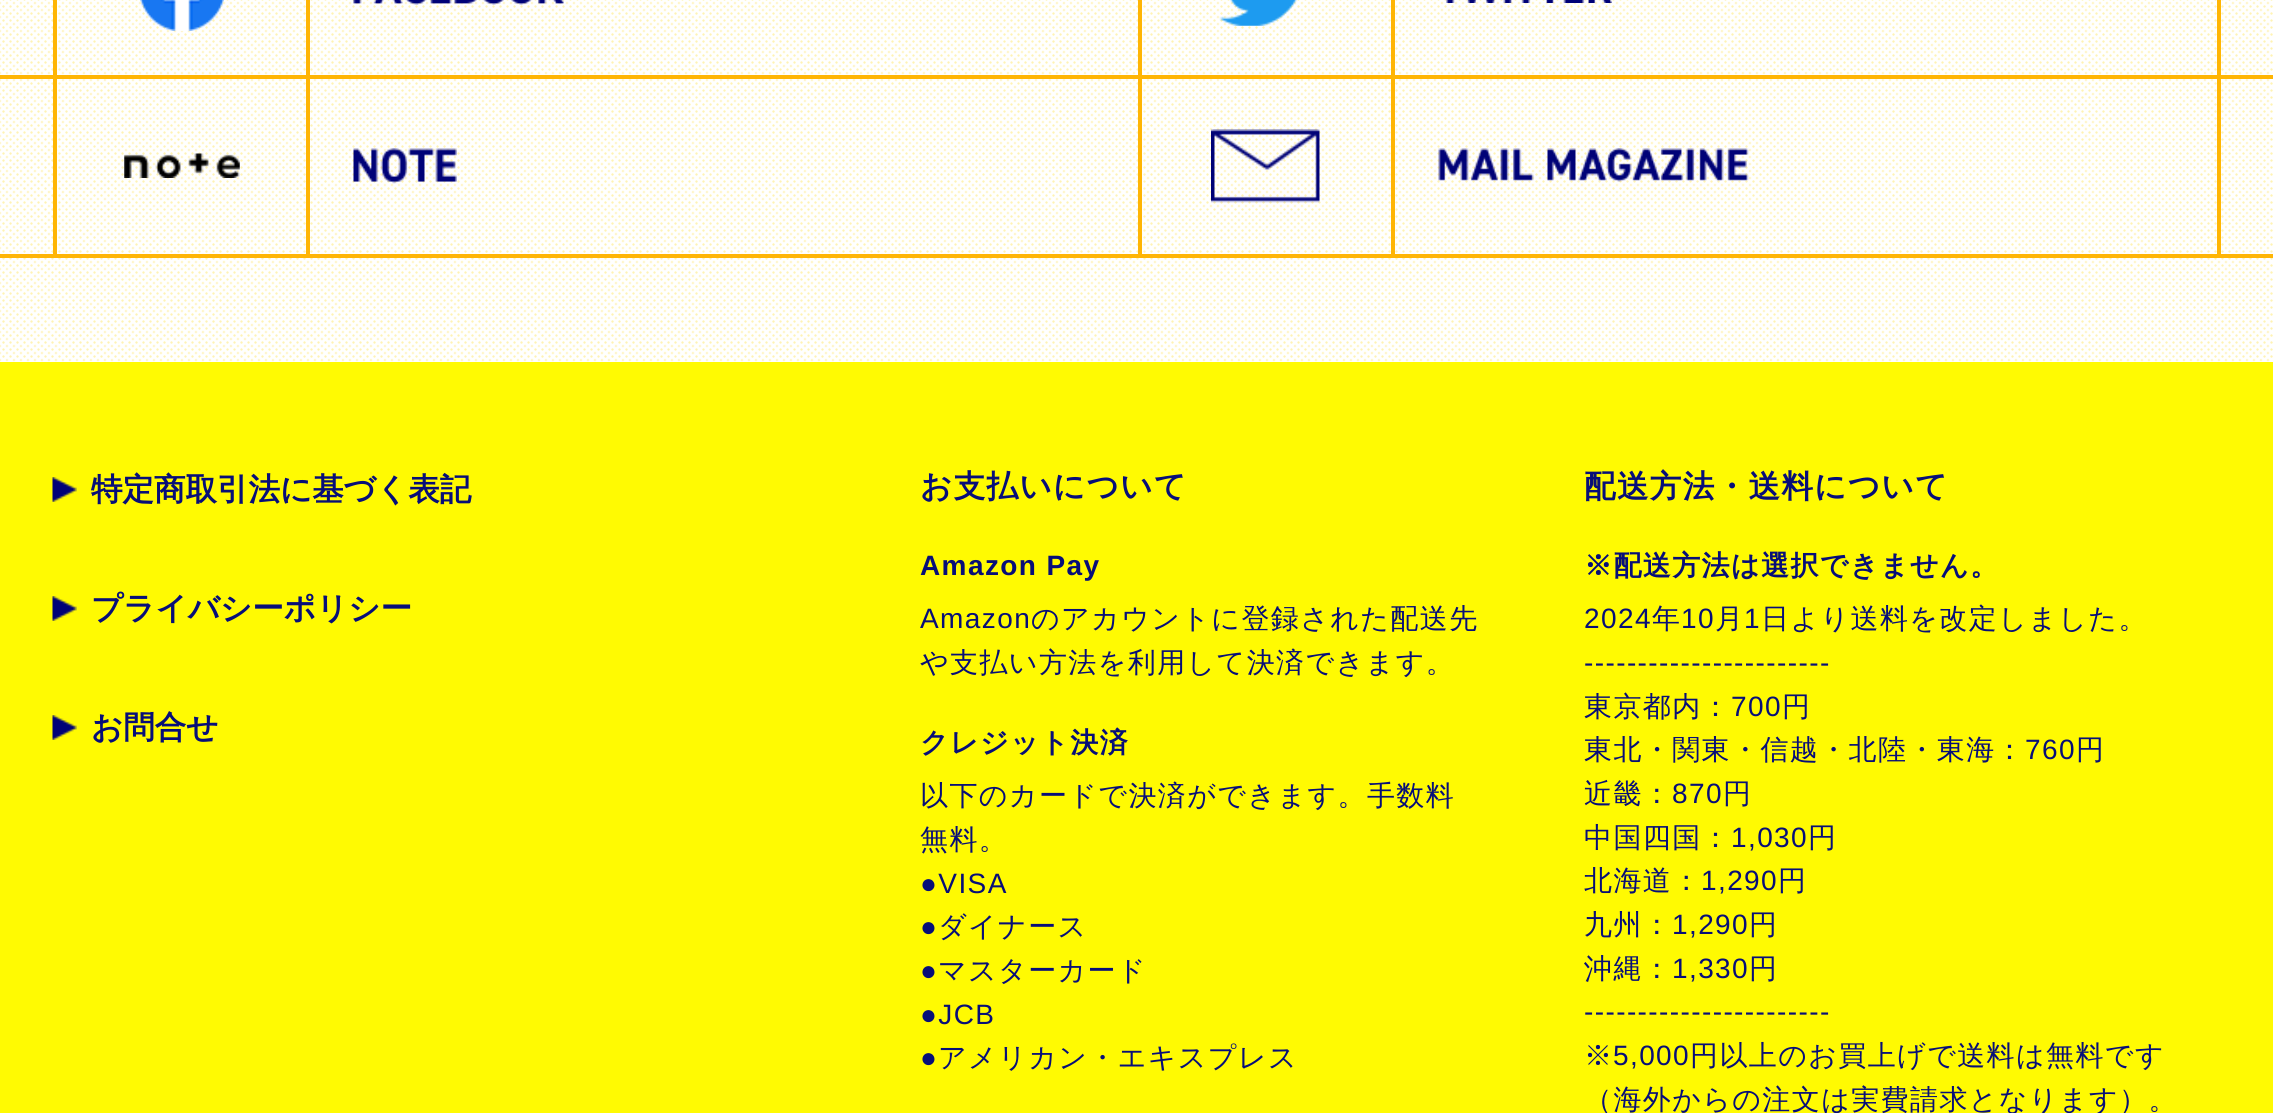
import math
import cairo


def write_spaced(ctx, x, y, s, letter, word):
	ctx.move_to(x, y)
	for ch in s:
		ctx.show_text(ch)
		ctx.rel_move_to(letter + word * (ch == ' '), 0)

def paste(ctx, path, x, y, w, h):
	ctx.save()
	ctx.set_source_surface(cairo.ImageSurface.create_from_png(path), x, y)
	ctx.rectangle(x, y, w, h)
	ctx.fill()
	ctx.restore()

def draw(ctx):
	ctx.set_source_rgb(1, 1, 1)
	ctx.paint()
	paste(ctx, 'media/1.png', 0, 0, 2273, 362)
	ctx.set_source_rgb(1, 0.71, 0.016)
	ctx.rectangle(53, 0, 4, 75)
	ctx.fill()
	paste(ctx, 'media/2.png', 140, 0, 84, 31)
	ctx.rectangle(306, 0, 4, 75)
	ctx.fill()
	paste(ctx, 'media/3.png', 353, 0, 211, 5)
	ctx.rectangle(2217, 0, 4, 75)
	ctx.fill()
	ctx.rectangle(1138, 0, 4, 75)
	ctx.fill()
	paste(ctx, 'media/4.png', 1219, 0, 79, 26)
	ctx.rectangle(1391, 0, 4, 75)
	ctx.fill()
	paste(ctx, 'media/5.png', 1446, 0, 166, 3)
	ctx.rectangle(0, 75, 2273, 4)
	ctx.rectangle(0, 254, 2273, 4)
	ctx.rectangle(53, 79, 4, 175)
	ctx.fill()
	paste(ctx, 'media/6.png', 124, 153, 116, 25)
	ctx.rectangle(306, 79, 4, 175)
	ctx.fill()
	paste(ctx, 'media/7.png', 353, 148, 104, 36)
	ctx.rectangle(2217, 79, 4, 175)
	ctx.fill()
	ctx.rectangle(1138, 79, 4, 175)
	ctx.fill()
	paste(ctx, 'media/8.png', 1211, 129, 109, 74)
	ctx.rectangle(1391, 79, 4, 175)
	ctx.fill()
	paste(ctx, 'media/9.png', 1438, 148, 311, 34)
	ctx.set_source_rgb(1, 0.98, 0.008)
	ctx.rectangle(0, 362, 2273, 751)
	ctx.fill()
	paste(ctx, 'media/10.png', 52, 477, 25, 25)
	ctx.select_font_face('WenQuanYi Zen Hei', cairo.FONT_SLANT_NORMAL, cairo.FONT_WEIGHT_BOLD)
	ctx.set_font_size(31.5)
	ctx.set_source_rgb(0.031, 0.055, 0.471)
	ctx.move_to(91, 500)
	ctx.show_text('特定商取引法に基づく表記')
	paste(ctx, 'media/10.png', 52, 596, 25, 25)
	ctx.move_to(91, 619)
	ctx.show_text('プライバシーポリシー')
	paste(ctx, 'media/10.png', 52, 715, 25, 25)
	ctx.move_to(91, 738)
	ctx.show_text('お問合せ')
	write_spaced(ctx, 920, 497, 'お支払いについて', 1.4, 0)
	ctx.select_font_face('Liberation Sans', cairo.FONT_SLANT_NORMAL, cairo.FONT_WEIGHT_BOLD)
	ctx.set_font_size(28)
	write_spaced(ctx, 920, 575, 'Amazon Pay', 1.4, 0)
	ctx.select_font_face('Liberation Sans')
	write_spaced(ctx, 920, 628, 'Amazon', 1.4, 0)
	ctx.select_font_face('WenQuanYi Zen Hei Medium')
	write_spaced(ctx, 1031, 628, 'のアカウントに登録された配送先', 1.4, 0)
	write_spaced(ctx, 920, 672, 'や支払い方法を利用して決済できます。', 1.4, 0)
	ctx.select_font_face('WenQuanYi Zen Hei', cairo.FONT_SLANT_NORMAL, cairo.FONT_WEIGHT_BOLD)
	write_spaced(ctx, 920, 752, 'クレジット決済', 1.4, 0)
	ctx.select_font_face('WenQuanYi Zen Hei Medium')
	write_spaced(ctx, 920, 805, '以下のカードで決済ができます。手数料', 1.4, 0)
	write_spaced(ctx, 920, 849, '無料。', 1.4, 0)
	ctx.select_font_face('Liberation Sans')
	write_spaced(ctx, 920, 893, '●VISA', 1.4, 0)
	write_spaced(ctx, 920, 936, '●', 1.4, 0)
	ctx.select_font_face('WenQuanYi Zen Hei Medium')
	write_spaced(ctx, 938, 936, 'ダイナース', 1.4, 0)
	ctx.select_font_face('Liberation Sans')
	write_spaced(ctx, 920, 980, '●', 1.4, 0)
	ctx.select_font_face('WenQuanYi Zen Hei Medium')
	write_spaced(ctx, 938, 980, 'マスターカード', 1.4, 0)
	ctx.select_font_face('Liberation Sans')
	write_spaced(ctx, 920, 1024, '●JCB', 1.4, 0)
	write_spaced(ctx, 920, 1067, '●', 1.4, 0)
	ctx.select_font_face('WenQuanYi Zen Hei Medium')
	write_spaced(ctx, 938, 1067, 'アメリカン・エキスプレス', 1.4, 0)
	ctx.select_font_face('WenQuanYi Zen Hei', cairo.FONT_SLANT_NORMAL, cairo.FONT_WEIGHT_BOLD)
	ctx.set_font_size(31.5)
	write_spaced(ctx, 1584, 497, '配送方法・送料について', 1.4, 0)
	ctx.set_font_size(28)
	write_spaced(ctx, 1584, 575, '※配送方法は選択できません。', 1.4, 0)
	ctx.select_font_face('Liberation Sans')
	write_spaced(ctx, 1584, 628, '2024', 1.4, 0)
	ctx.select_font_face('WenQuanYi Zen Hei Medium')
	write_spaced(ctx, 1652, 628, '年', 1.4, 0)
	ctx.select_font_face('Liberation Sans')
	write_spaced(ctx, 1681, 628, '10', 1.4, 0)
	ctx.select_font_face('WenQuanYi Zen Hei Medium')
	write_spaced(ctx, 1715, 628, '月', 1.4, 0)
	ctx.select_font_face('Liberation Sans')
	write_spaced(ctx, 1744, 628, '1', 1.4, 0)
	ctx.select_font_face('WenQuanYi Zen Hei Medium')
	write_spaced(ctx, 1761, 628, '日より送料を改定しました。', 1.4, 0)
	ctx.select_font_face('Liberation Sans')
	write_spaced(ctx, 1584, 672, '-----------------------', 1.4, 0)
	ctx.select_font_face('WenQuanYi Zen Hei Medium')
	write_spaced(ctx, 1584, 716, '東京都内：', 1.4, 0)
	ctx.select_font_face('Liberation Sans')
	write_spaced(ctx, 1731, 716, '700', 1.4, 0)
	ctx.select_font_face('WenQuanYi Zen Hei Medium')
	write_spaced(ctx, 1782, 716, '円', 1.4, 0)
	write_spaced(ctx, 1584, 759, '東北・関東・信越・北陸・東海：', 1.4, 0)
	ctx.select_font_face('Liberation Sans')
	write_spaced(ctx, 2025, 759, '760', 1.4, 0)
	ctx.select_font_face('WenQuanYi Zen Hei Medium')
	write_spaced(ctx, 2076, 759, '円', 1.4, 0)
	write_spaced(ctx, 1584, 803, '近畿：', 1.4, 0)
	ctx.select_font_face('Liberation Sans')
	write_spaced(ctx, 1672, 803, '870', 1.4, 0)
	ctx.select_font_face('WenQuanYi Zen Hei Medium')
	write_spaced(ctx, 1723, 803, '円', 1.4, 0)
	write_spaced(ctx, 1584, 847, '中国四国：', 1.4, 0)
	ctx.select_font_face('Liberation Sans')
	write_spaced(ctx, 1731, 847, '1,030', 1.4, 0)
	ctx.select_font_face('WenQuanYi Zen Hei Medium')
	write_spaced(ctx, 1808, 847, '円', 1.4, 0)
	write_spaced(ctx, 1584, 890, '北海道：', 1.4, 0)
	ctx.select_font_face('Liberation Sans')
	write_spaced(ctx, 1701, 890, '1,290', 1.4, 0)
	ctx.select_font_face('WenQuanYi Zen Hei Medium')
	write_spaced(ctx, 1778, 890, '円', 1.4, 0)
	write_spaced(ctx, 1584, 934, '九州：', 1.4, 0)
	ctx.select_font_face('Liberation Sans')
	write_spaced(ctx, 1672, 934, '1,290', 1.4, 0)
	ctx.select_font_face('WenQuanYi Zen Hei Medium')
	write_spaced(ctx, 1749, 934, '円', 1.4, 0)
	write_spaced(ctx, 1584, 978, '沖縄：', 1.4, 0)
	ctx.select_font_face('Liberation Sans')
	write_spaced(ctx, 1672, 978, '1,330', 1.4, 0)
	ctx.select_font_face('WenQuanYi Zen Hei Medium')
	write_spaced(ctx, 1749, 978, '円', 1.4, 0)
	ctx.select_font_face('Liberation Sans')
	write_spaced(ctx, 1584, 1021, '-----------------------', 1.4, 0)
	ctx.select_font_face('WenQuanYi Zen Hei Medium')
	write_spaced(ctx, 1584, 1065, '※', 1.4, 0)
	ctx.select_font_face('Liberation Sans')
	write_spaced(ctx, 1613, 1065, '5,000', 1.4, 0)
	ctx.select_font_face('WenQuanYi Zen Hei Medium')
	write_spaced(ctx, 1690, 1065, '円以上のお買上げで送料は無料です', 1.4, 0)
	write_spaced(ctx, 1584, 1109, '（海外からの注文は実費請求となります）。', 1.4, 0)


surface = cairo.ImageSurface(cairo.FORMAT_RGB24, 2273, 1113)
ctx = cairo.Context(surface)
options = cairo.FontOptions()
options.set_hint_metrics(cairo.HINT_METRICS_OFF)
options.set_hint_style(cairo.HINT_STYLE_NONE)
ctx.set_font_options(options)
ctx.set_miter_limit(4)
draw(ctx)
surface.write_to_png('image.png')
